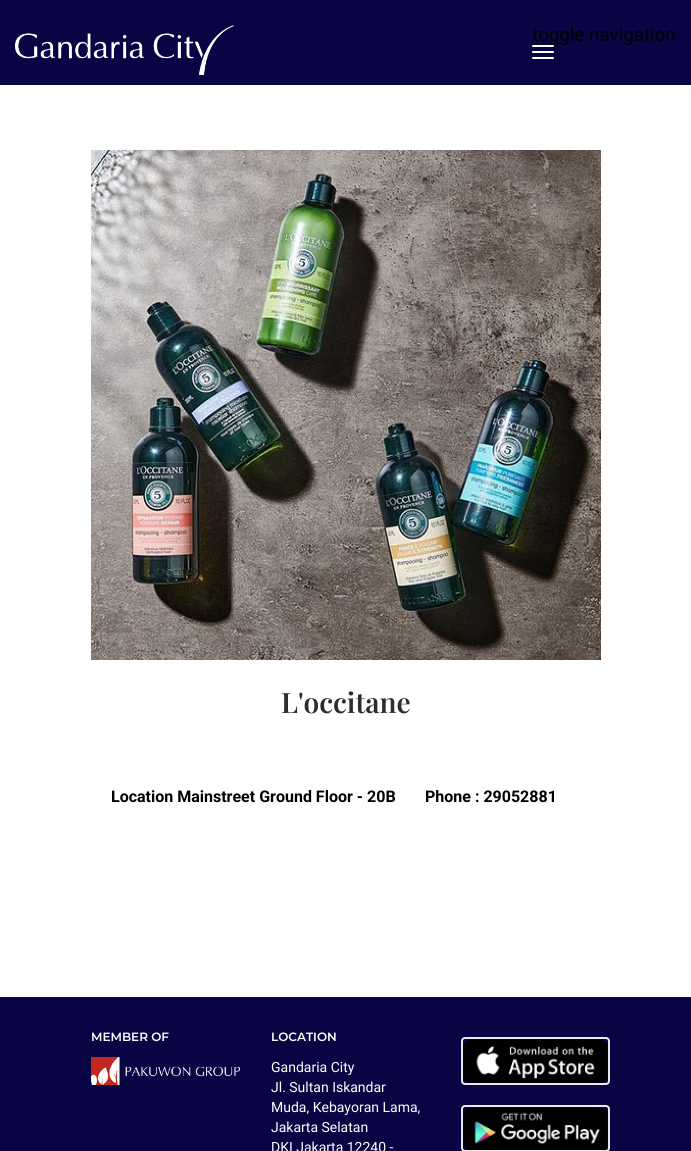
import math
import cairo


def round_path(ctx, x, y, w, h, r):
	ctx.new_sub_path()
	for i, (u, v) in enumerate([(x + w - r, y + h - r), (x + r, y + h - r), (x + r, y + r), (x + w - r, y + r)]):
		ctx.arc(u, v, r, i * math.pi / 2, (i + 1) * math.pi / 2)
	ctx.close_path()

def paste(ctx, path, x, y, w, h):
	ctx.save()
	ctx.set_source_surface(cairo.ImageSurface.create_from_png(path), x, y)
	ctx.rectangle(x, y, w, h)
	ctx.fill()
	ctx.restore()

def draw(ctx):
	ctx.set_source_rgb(1, 1, 1)
	ctx.paint()
	ctx.set_source_rgb(0.039, 0.016, 0.267)
	ctx.rectangle(0, 0, 691, 85)
	ctx.fill()
	paste(ctx, 'media/1.png', 15, 25, 219, 50)
	ctx.select_font_face('Roboto')
	ctx.set_font_size(18.75)
	ctx.set_source_rgb(0, 0, 0)
	ctx.move_to(532, 41)
	ctx.show_text('toggle navigation')
	ctx.set_source_rgb(1, 1, 1)
	round_path(ctx, 532, 45, 22, 2, 1)
	ctx.fill()
	round_path(ctx, 532, 51, 22, 2, 1)
	ctx.fill()
	round_path(ctx, 532, 57, 22, 2, 1)
	ctx.fill()
	paste(ctx, 'media/2.png', 91, 150, 510, 510)
	ctx.select_font_face('Playfair Display SemiBold')
	ctx.set_font_size(28)
	ctx.set_source_rgb(0.176, 0.176, 0.176)
	ctx.move_to(281, 713)
	ctx.show_text('L\'occitane')
	ctx.select_font_face('Roboto', cairo.FONT_SLANT_NORMAL, cairo.FONT_WEIGHT_BOLD)
	ctx.set_font_size(16)
	ctx.set_source_rgb(0, 0, 0)
	ctx.move_to(111, 802)
	ctx.show_text('Location Mainstreet Ground Floor - 20B')
	ctx.move_to(425, 802)
	ctx.show_text('Phone : 29052881')
	ctx.set_source_rgb(0.039, 0.016, 0.267)
	ctx.rectangle(0, 997, 691, 154)
	ctx.fill()
	ctx.select_font_face('Montserrat SemiBold')
	ctx.set_font_size(12)
	ctx.set_source_rgb(1, 1, 1)
	ctx.move_to(91, 1041)
	ctx.show_text('MEMBER OF')
	paste(ctx, 'media/3.png', 91, 1057, 149, 28)
	ctx.move_to(271, 1041)
	ctx.show_text('LOCATION')
	ctx.select_font_face('Roboto')
	ctx.set_font_size(14)
	for x, y, s in [
		(271, 1072, 'Gandaria City'),
		(271, 1092, 'Jl. Sultan Iskandar'),
		(271, 1112, 'Muda, Kebayoran Lama,'),
		(271, 1132, 'Jakarta Selatan'),
		(271, 1152, 'DKI Jakarta 12240 -'),
	]:
		ctx.move_to(x, y)
		ctx.show_text(s)
	round_path(ctx, 462, 1038, 147, 46, 3)
	ctx.set_source_rgb(0.914, 0.914, 0.914)
	ctx.stroke()
	paste(ctx, 'media/4.png', 463, 1039, 145, 44)
	round_path(ctx, 462, 1106, 147, 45, 3)
	ctx.stroke()
	paste(ctx, 'media/5.png', 463, 1107, 145, 43)


surface = cairo.ImageSurface(cairo.FORMAT_RGB24, 691, 1151)
ctx = cairo.Context(surface)
options = cairo.FontOptions()
options.set_hint_metrics(cairo.HINT_METRICS_OFF)
options.set_hint_style(cairo.HINT_STYLE_NONE)
ctx.set_font_options(options)
ctx.set_miter_limit(4)
draw(ctx)
surface.write_to_png('image.png')
